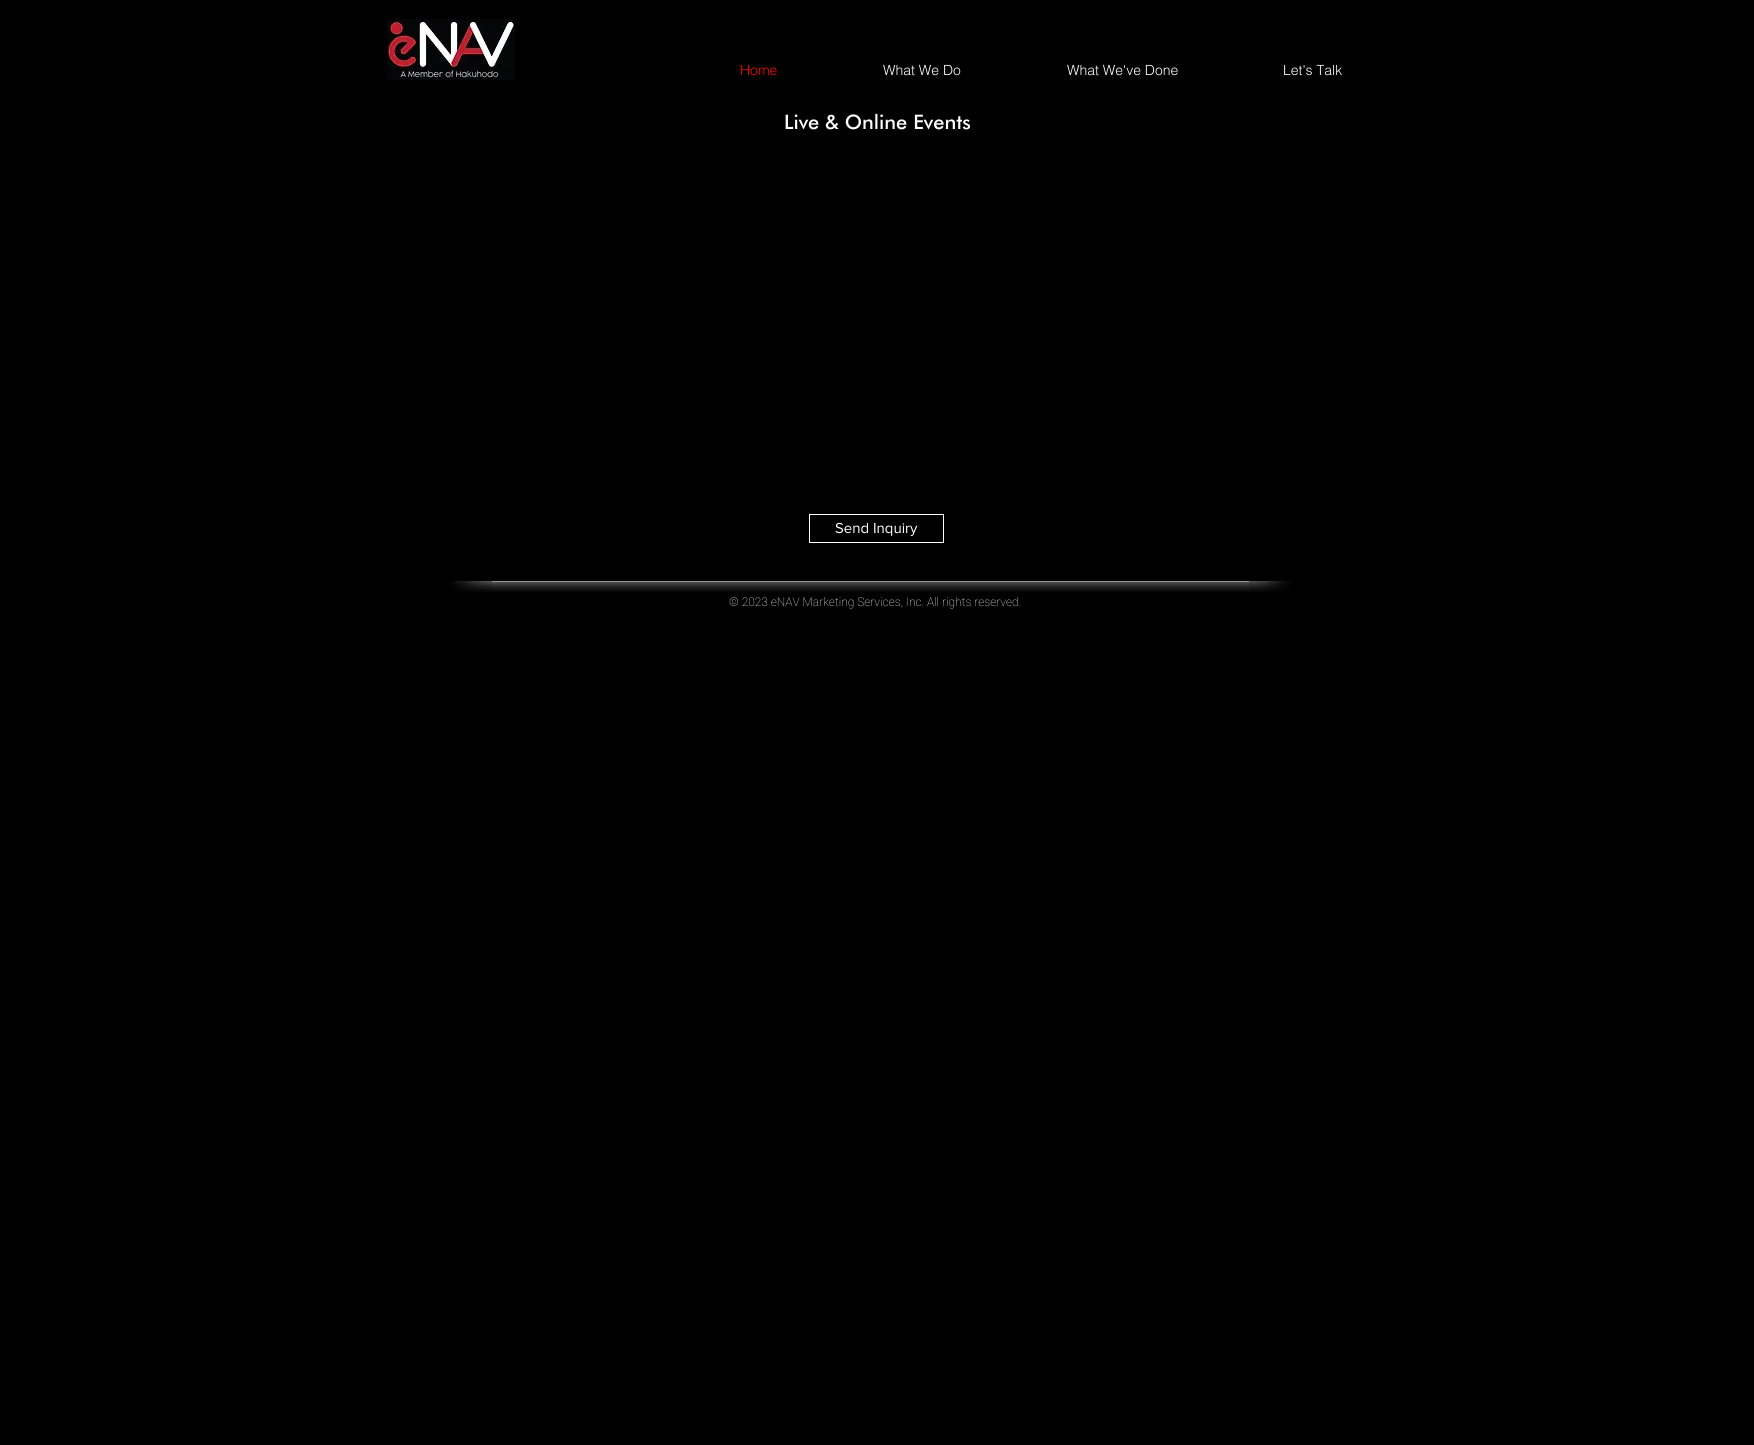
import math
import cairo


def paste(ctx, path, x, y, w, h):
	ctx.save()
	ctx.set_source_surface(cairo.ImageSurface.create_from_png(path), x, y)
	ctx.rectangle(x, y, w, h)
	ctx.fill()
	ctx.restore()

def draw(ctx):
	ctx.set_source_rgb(0, 0, 0)
	ctx.paint()
	paste(ctx, 'media/1.png', 387, 19, 128, 61)
	ctx.select_font_face('helvetica Light')
	ctx.set_font_size(14)
	ctx.set_source_rgb(1, 0, 0)
	ctx.move_to(740, 75)
	ctx.show_text('Home')
	ctx.set_source_rgb(1, 1, 1)
	for x, y, s in [
		(883, 75, 'What We Do'),
		(1067, 75, 'What We\'ve Done'),
		(1283, 75, 'Let\'s Talk'),
	]:
		ctx.move_to(x, y)
		ctx.show_text(s)
	ctx.select_font_face('Futura Medium')
	ctx.set_font_size(20)
	ctx.move_to(784, 129)
	ctx.show_text('Live & Online Events')
	ctx.rectangle(809.5, 514.5, 134, 28)
	ctx.set_line_width(1)
	ctx.stroke()
	ctx.select_font_face('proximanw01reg')
	ctx.set_font_size(15)
	ctx.move_to(835, 533)
	ctx.show_text('Send Inquiry')
	paste(ctx, 'media/2.png', 492, 581, 757, 11)
	paste(ctx, 'media/3.png', 450, 581, 42, 11)
	paste(ctx, 'media/4.png', 1249, 581, 42, 11)
	ctx.select_font_face('Roboto Thin')
	ctx.set_font_size(12)
	ctx.move_to(729, 606)
	ctx.show_text('© 2023 eNAV Marketing Services, Inc. All rights reserved.')


surface = cairo.ImageSurface(cairo.FORMAT_RGB24, 1754, 1445)
ctx = cairo.Context(surface)
options = cairo.FontOptions()
options.set_hint_metrics(cairo.HINT_METRICS_OFF)
options.set_hint_style(cairo.HINT_STYLE_NONE)
ctx.set_font_options(options)
ctx.set_miter_limit(4)
draw(ctx)
surface.write_to_png('image.png')
